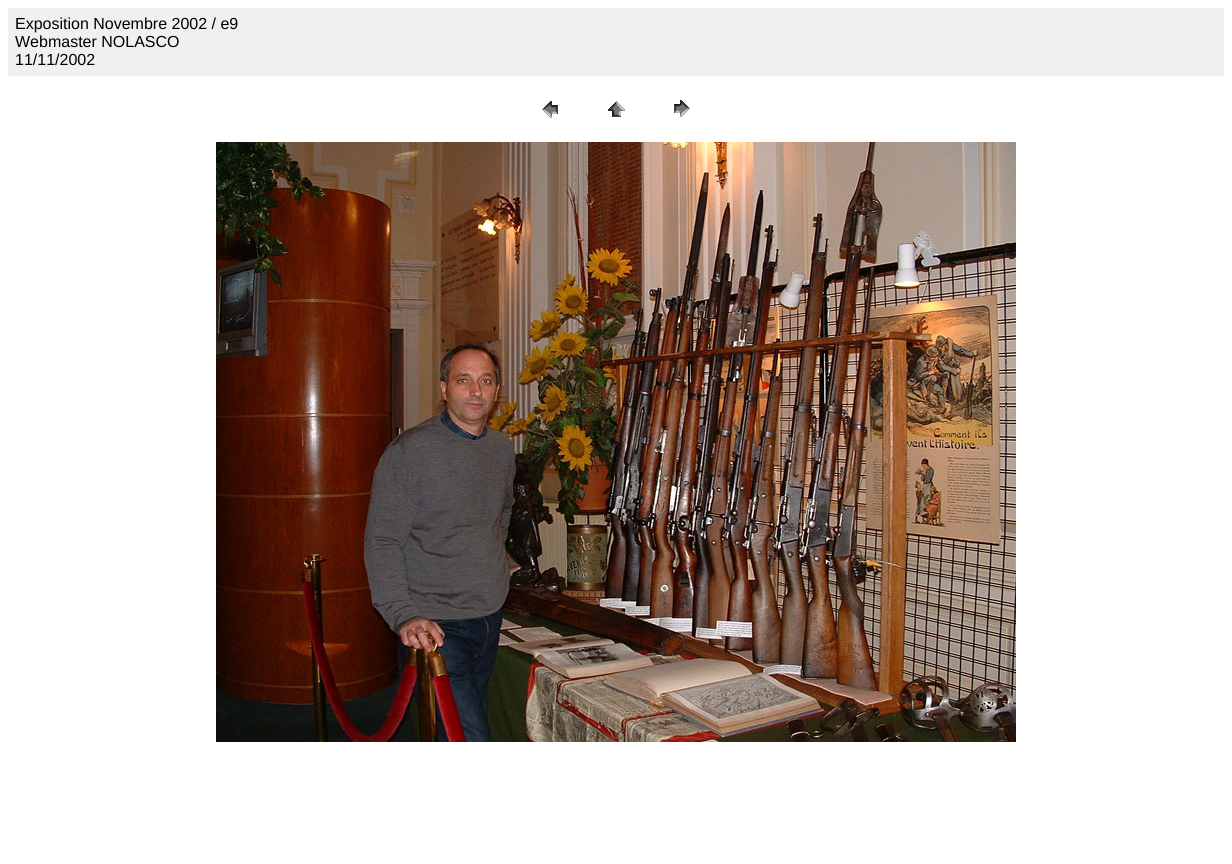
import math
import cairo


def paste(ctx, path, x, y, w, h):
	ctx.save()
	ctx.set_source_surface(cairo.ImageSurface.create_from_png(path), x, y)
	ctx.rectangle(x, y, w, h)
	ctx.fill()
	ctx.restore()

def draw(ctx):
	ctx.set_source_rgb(1, 1, 1)
	ctx.paint()
	ctx.set_source_rgb(0.941, 0.941, 0.941)
	ctx.rectangle(8, 8, 1216, 68)
	ctx.fill()
	ctx.select_font_face('Liberation Sans')
	ctx.set_font_size(16)
	ctx.set_source_rgb(0, 0, 0)
	for x, y, s in [
		(15, 29, 'Exposition Novembre 2002 / e9'),
		(15, 47, 'Webmaster NOLASCO'),
		(15, 65, '11/11/2002'),
	]:
		ctx.move_to(x, y)
		ctx.show_text(s)
	paste(ctx, 'media/1.png', 542, 101, 16, 17)
	paste(ctx, 'media/2.png', 608, 101, 17, 16)
	paste(ctx, 'media/3.png', 674, 100, 16, 17)
	paste(ctx, 'media/4.png', 216, 142, 800, 600)


surface = cairo.ImageSurface(cairo.FORMAT_RGB24, 1232, 864)
ctx = cairo.Context(surface)
options = cairo.FontOptions()
options.set_hint_metrics(cairo.HINT_METRICS_OFF)
options.set_hint_style(cairo.HINT_STYLE_NONE)
ctx.set_font_options(options)
ctx.set_miter_limit(4)
draw(ctx)
surface.write_to_png('image.png')
